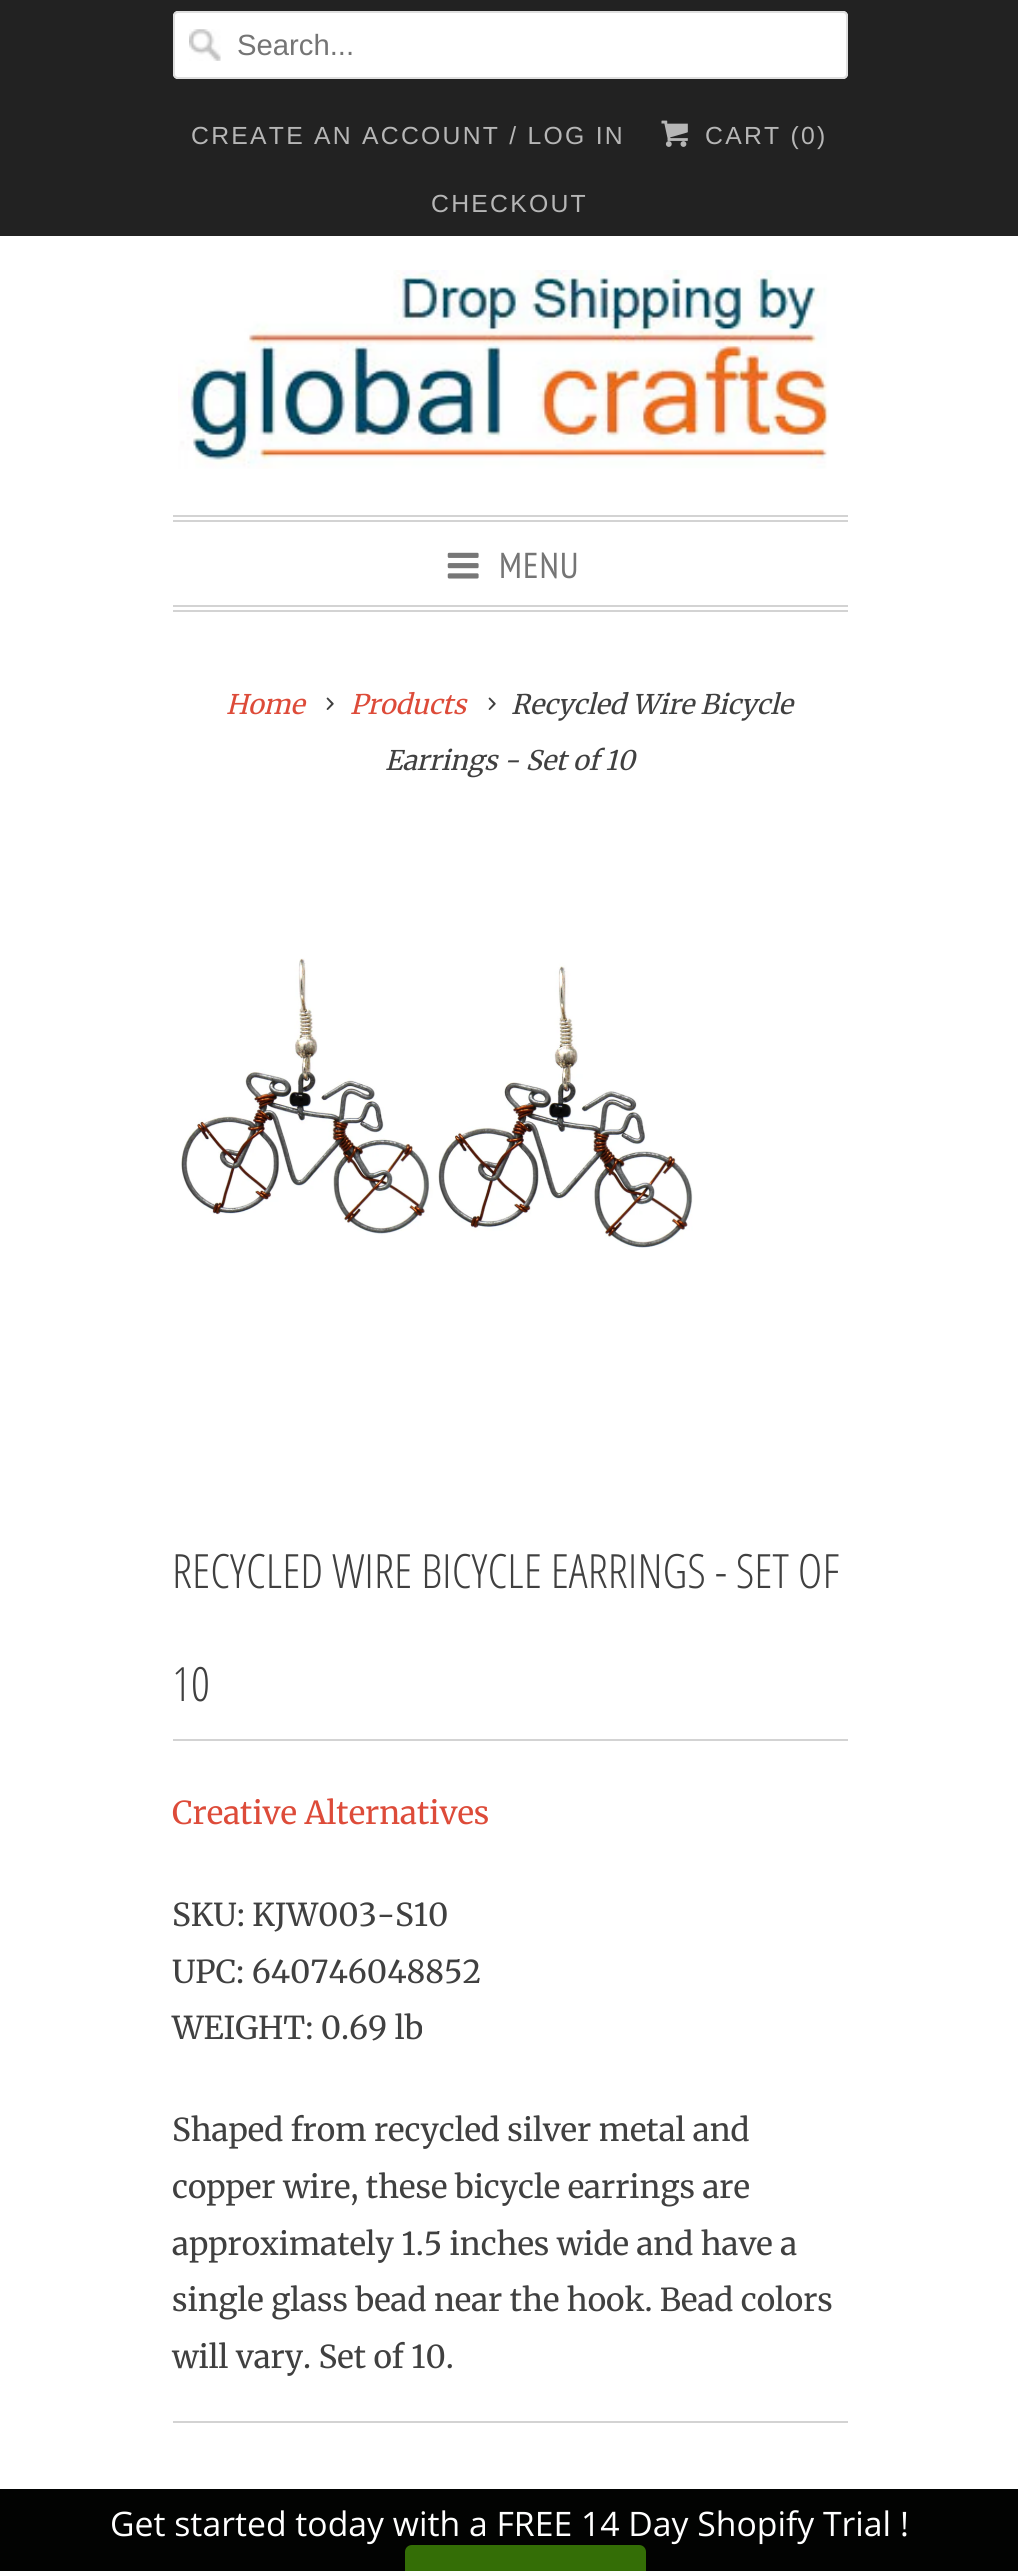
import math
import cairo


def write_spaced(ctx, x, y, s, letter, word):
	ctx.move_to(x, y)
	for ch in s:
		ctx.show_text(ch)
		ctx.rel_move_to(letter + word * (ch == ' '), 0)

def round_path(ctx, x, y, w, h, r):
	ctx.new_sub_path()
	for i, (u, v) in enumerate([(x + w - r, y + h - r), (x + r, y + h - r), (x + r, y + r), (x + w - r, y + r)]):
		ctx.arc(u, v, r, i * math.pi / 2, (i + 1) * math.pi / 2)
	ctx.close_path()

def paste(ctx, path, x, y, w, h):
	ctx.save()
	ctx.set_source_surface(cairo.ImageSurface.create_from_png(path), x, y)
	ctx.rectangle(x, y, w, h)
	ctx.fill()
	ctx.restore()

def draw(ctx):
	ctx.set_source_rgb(1, 1, 1)
	ctx.paint()
	ctx.set_source_rgb(0.133, 0.133, 0.133)
	ctx.rectangle(0, 0, 1018, 236)
	ctx.fill()
	ctx.set_source_rgb(1, 1, 1)
	round_path(ctx, 173, 11, 675, 68, 5)
	ctx.fill()
	paste(ctx, 'media/1.png', 189, 29, 32, 32)
	round_path(ctx, 174, 12, 673, 66, 4)
	ctx.set_source_rgb(0.875, 0.875, 0.875)
	ctx.stroke()
	ctx.select_font_face('Liberation Sans')
	ctx.set_font_size(29.25)
	ctx.set_source_rgb(0.459, 0.459, 0.459)
	ctx.move_to(237, 55)
	ctx.show_text('Search...')
	ctx.set_font_size(24.75)
	ctx.set_source_rgb(0.714, 0.714, 0.714)
	write_spaced(ctx, 191, 144, 'CREATE AN ACCOUNT / LOG IN', 2.25, 0)
	paste(ctx, 'media/2.png', 661, 120, 27, 27)
	write_spaced(ctx, 705, 144, 'CART (0)', 2.25, 0)
	write_spaced(ctx, 431, 212, 'CHECKOUT', 2.25, 0)
	paste(ctx, 'media/3.png', 178, 270, 651, 199)
	ctx.set_source_rgb(0.827, 0.827, 0.827)
	ctx.rectangle(173, 515, 675, 2)
	ctx.rectangle(173, 520, 675, 2)
	ctx.rectangle(173, 605, 675, 2)
	ctx.rectangle(173, 610, 675, 2)
	ctx.fill()
	paste(ctx, 'media/4.png', 447, 552, 32, 27)
	ctx.select_font_face('PT Sans Narrow')
	ctx.set_font_size(36)
	ctx.set_source_rgb(0.459, 0.459, 0.459)
	write_spaced(ctx, 499, 578, 'MENU', 1, 0)
	ctx.select_font_face('Merriweather', cairo.FONT_SLANT_ITALIC)
	ctx.set_font_size(27)
	ctx.set_source_rgb(0.867, 0.294, 0.224)
	ctx.move_to(226, 714)
	ctx.show_text('Home')
	paste(ctx, 'media/5.png', 326, 697, 8, 13)
	ctx.move_to(350, 714)
	ctx.show_text('Products')
	paste(ctx, 'media/5.png', 488, 697, 8, 13)
	ctx.set_source_rgb(0.251, 0.251, 0.251)
	ctx.move_to(511, 714)
	ctx.show_text('Recycled Wire Bicycle')
	ctx.move_to(385, 770)
	ctx.show_text('Earrings - Set of 10')
	paste(ctx, 'media/6.png', 181, 958, 512, 290)
	ctx.set_source_rgb(0.827, 0.827, 0.827)
	ctx.rectangle(173, 1739, 675, 2)
	ctx.fill()
	ctx.select_font_face('Open Sans Condensed Light')
	ctx.set_font_size(47.25)
	ctx.set_source_rgb(0.251, 0.251, 0.251)
	ctx.move_to(172, 1588)
	ctx.show_text('RECYCLED WIRE BICYCLE EARRINGS - SET OF')
	ctx.move_to(172, 1701)
	ctx.show_text('10')
	ctx.select_font_face('Merriweather')
	ctx.set_font_size(31.5)
	ctx.set_source_rgb(0.867, 0.294, 0.224)
	ctx.move_to(172, 1824)
	ctx.show_text('Creative Alternatives')
	ctx.set_source_rgb(0.251, 0.251, 0.251)
	for x, y, s in [
		(172, 1926, 'SKU: KJW003-S10'),
		(172, 1983, 'UPC: 640746048852'),
		(172, 2039, 'WEIGHT: 0.69 lb'),
		(172, 2141, 'Shaped from recycled silver metal and'),
		(172, 2198, 'copper wire, these bicycle earrings are'),
		(172, 2255, 'approximately 1.5 inches wide and have a'),
		(172, 2311, 'single glass bead near the hook. Bead colors'),
		(172, 2368, 'will vary. Set of 10.'),
	]:
		ctx.move_to(x, y)
		ctx.show_text(s)
	ctx.set_source_rgb(0.827, 0.827, 0.827)
	ctx.rectangle(173, 2421, 675, 2)
	ctx.fill()
	ctx.set_source_rgb(0.008, 0.012, 0.008)
	ctx.rectangle(0, 2489, 1018, 82)
	ctx.fill()
	ctx.select_font_face('Open Sans')
	ctx.set_font_size(33.75)
	ctx.set_source_rgb(1, 1, 1)
	ctx.move_to(110, 2536)
	ctx.show_text('Get started today with a FREE 14 Day Shopify Trial !')
	ctx.set_source_rgb(0.204, 0.431, 0.027)
	ctx.new_path()
	ctx.move_to(412, 2545)
	ctx.line_to(639, 2545)
	ctx.curve_to(643, 2545, 646, 2548, 646, 2552)
	ctx.line_to(646, 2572)
	ctx.line_to(405, 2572)
	ctx.line_to(405, 2552)
	ctx.curve_to(405, 2548, 408, 2545, 412, 2545)
	ctx.close_path()
	ctx.fill()


surface = cairo.ImageSurface(cairo.FORMAT_RGB24, 1018, 2571)
ctx = cairo.Context(surface)
options = cairo.FontOptions()
options.set_hint_metrics(cairo.HINT_METRICS_OFF)
options.set_hint_style(cairo.HINT_STYLE_NONE)
ctx.set_font_options(options)
ctx.set_miter_limit(4)
draw(ctx)
surface.write_to_png('image.png')
